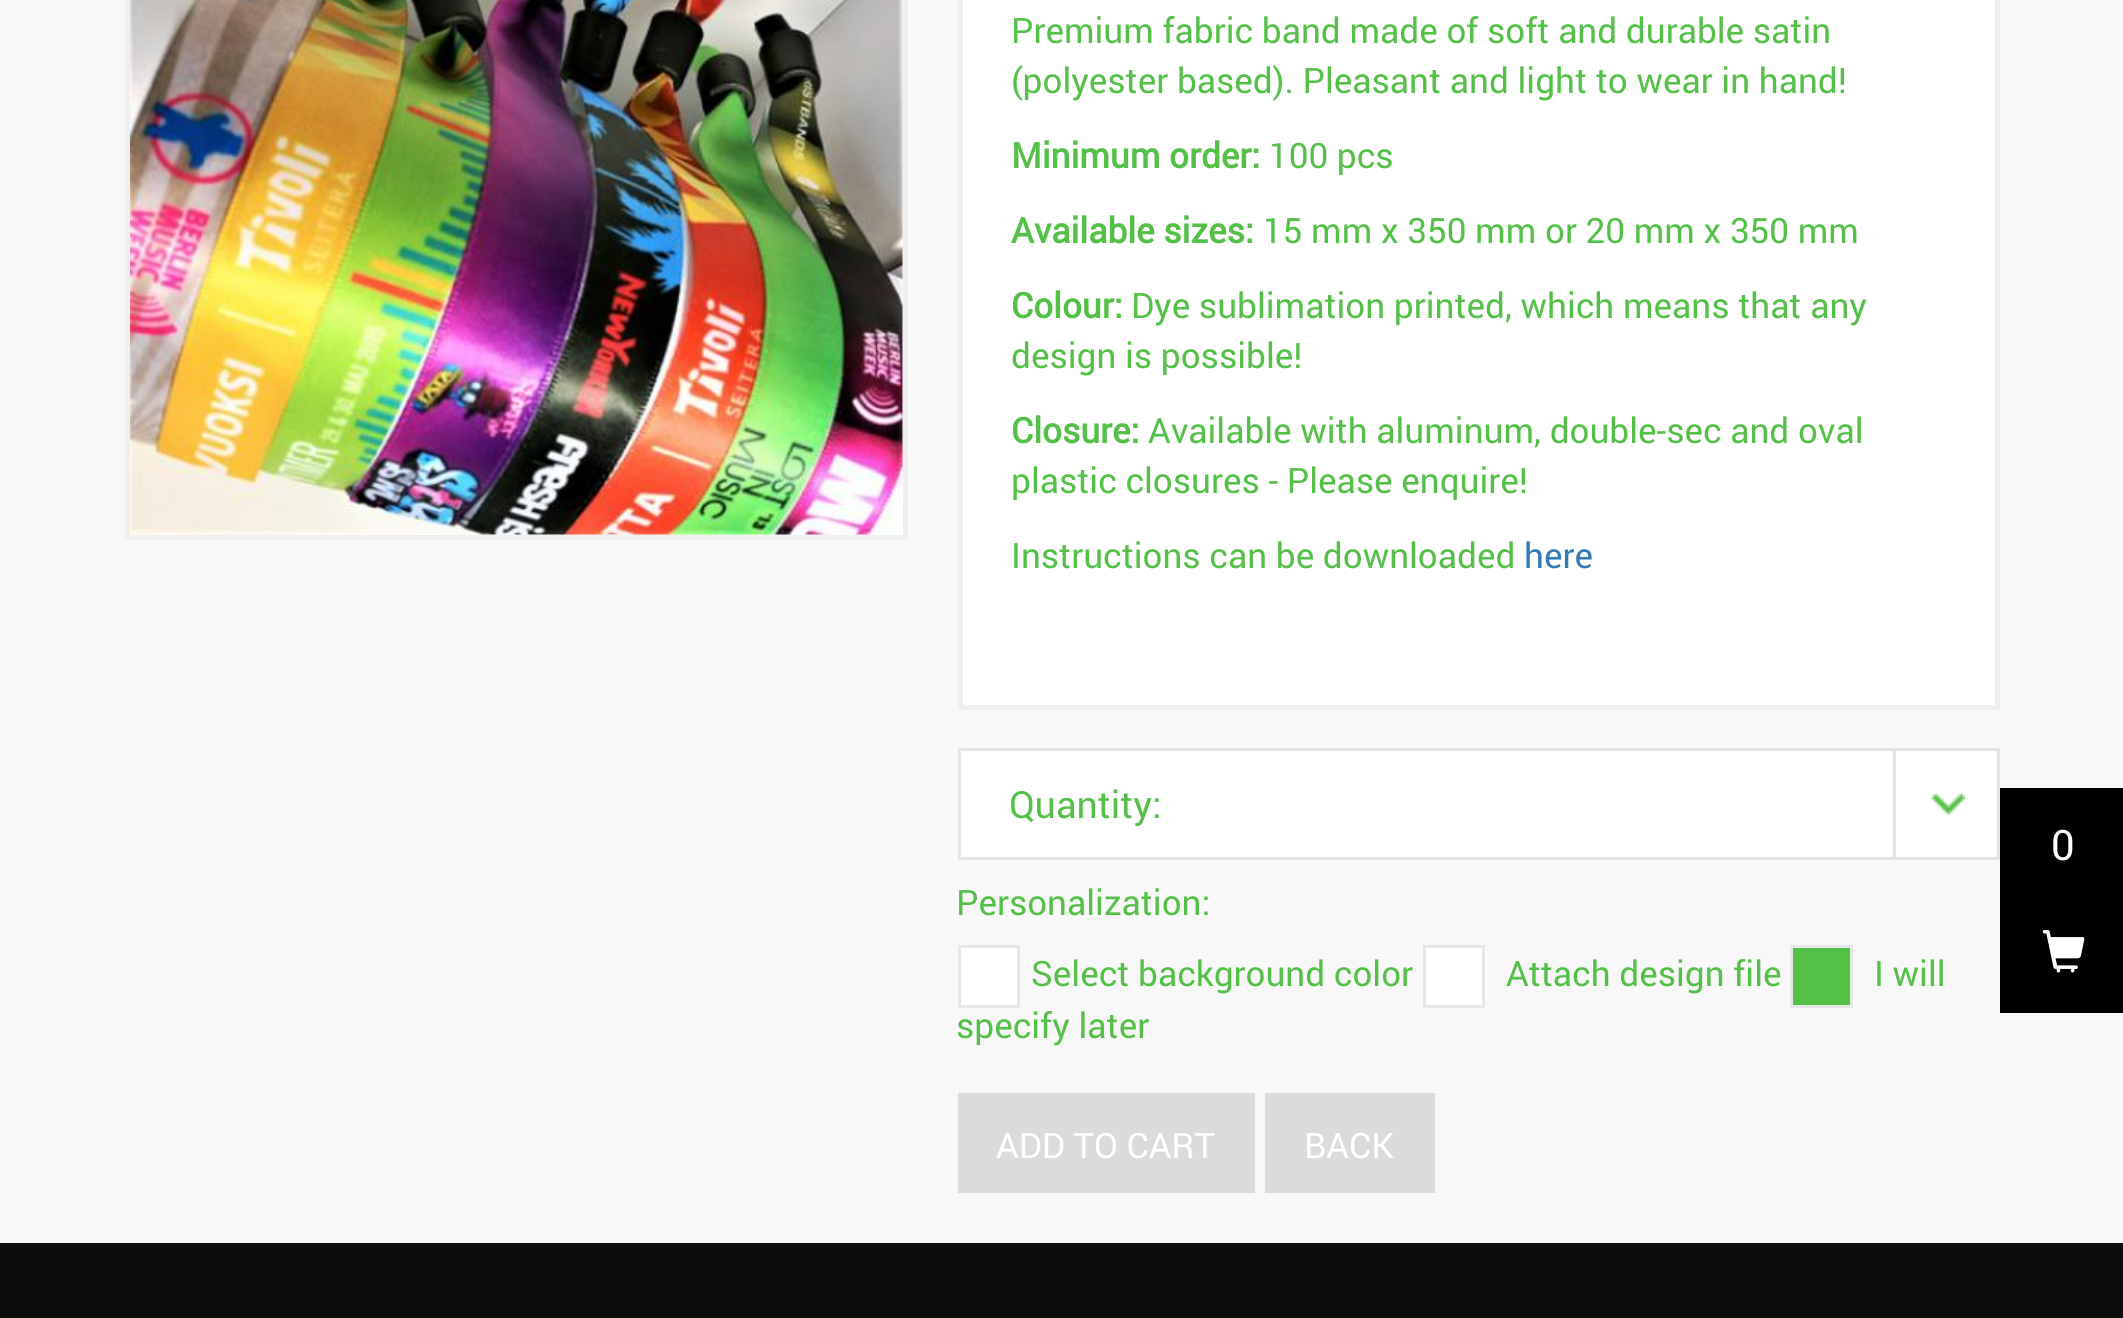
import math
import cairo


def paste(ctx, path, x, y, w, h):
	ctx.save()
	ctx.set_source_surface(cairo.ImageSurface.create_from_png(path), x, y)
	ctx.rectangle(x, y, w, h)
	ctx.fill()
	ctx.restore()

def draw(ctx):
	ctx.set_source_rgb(0.969, 0.969, 0.969)
	ctx.paint()
	ctx.set_source_rgb(1, 1, 1)
	ctx.rectangle(127.5, -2.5, 778, 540)
	ctx.fill_preserve()
	ctx.set_source_rgb(0.937, 0.937, 0.937)
	ctx.set_line_width(5)
	ctx.stroke()
	paste(ctx, 'media/1.png', 130, 0, 773, 535)
	ctx.set_source_rgb(1, 1, 1)
	ctx.rectangle(960.5, -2.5, 1037, 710)
	ctx.fill_preserve()
	ctx.set_source_rgb(0.937, 0.937, 0.937)
	ctx.stroke()
	ctx.select_font_face('Roboto')
	ctx.set_font_size(35)
	ctx.set_source_rgb(0.329, 0.753, 0.282)
	ctx.move_to(1011, 43)
	ctx.show_text('Premium fabric band made of soft and durable satin')
	ctx.move_to(1011, 93)
	ctx.show_text('(polyester based). Pleasant and light to wear in hand!')
	ctx.select_font_face('Roboto', cairo.FONT_SLANT_NORMAL, cairo.FONT_WEIGHT_BOLD)
	ctx.move_to(1011, 168)
	ctx.show_text('Minimum order:')
	ctx.select_font_face('Roboto')
	ctx.move_to(1269, 168)
	ctx.show_text('100 pcs')
	ctx.select_font_face('Roboto', cairo.FONT_SLANT_NORMAL, cairo.FONT_WEIGHT_BOLD)
	ctx.move_to(1011, 243)
	ctx.show_text('Available sizes:')
	ctx.select_font_face('Roboto')
	ctx.move_to(1263, 243)
	ctx.show_text('15 mm x 350 mm or 20 mm x 350 mm')
	ctx.select_font_face('Roboto', cairo.FONT_SLANT_NORMAL, cairo.FONT_WEIGHT_BOLD)
	ctx.move_to(1011, 318)
	ctx.show_text('Colour:')
	ctx.select_font_face('Roboto')
	ctx.move_to(1131, 318)
	ctx.show_text('Dye sublimation printed, which means that any')
	ctx.move_to(1011, 368)
	ctx.show_text('design is possible!')
	ctx.select_font_face('Roboto', cairo.FONT_SLANT_NORMAL, cairo.FONT_WEIGHT_BOLD)
	ctx.move_to(1011, 443)
	ctx.show_text('Closure:')
	ctx.select_font_face('Roboto')
	for x, y, s in [
		(1148, 443, 'Available with aluminum, double-sec and oval'),
		(1011, 493, 'plastic closures - Please enquire!'),
		(1011, 568, 'Instructions can be downloaded'),
	]:
		ctx.move_to(x, y)
		ctx.show_text(s)
	ctx.set_source_rgb(0.2, 0.478, 0.718)
	ctx.move_to(1524, 568)
	ctx.show_text('here')
	ctx.set_source_rgb(1, 1, 1)
	ctx.rectangle(959.5, 749.5, 1039, 109)
	ctx.fill_preserve()
	ctx.set_source_rgb(0.894, 0.894, 0.894)
	ctx.set_line_width(3)
	ctx.stroke()
	ctx.set_font_size(37.5)
	ctx.set_source_rgb(0.329, 0.753, 0.282)
	ctx.move_to(1009, 818)
	ctx.show_text('Quantity:')
	ctx.set_source_rgb(0.894, 0.894, 0.894)
	ctx.rectangle(1893, 750, 3, 108)
	ctx.fill()
	paste(ctx, 'media/2.png', 1930, 792, 35, 24)
	ctx.set_font_size(35)
	ctx.set_source_rgb(0.329, 0.753, 0.282)
	ctx.move_to(956, 915)
	ctx.show_text('Personalization:')
	ctx.set_source_rgb(1, 1, 1)
	ctx.rectangle(959.5, 946.5, 59, 60)
	ctx.fill_preserve()
	ctx.set_source_rgb(0.906, 0.906, 0.906)
	ctx.stroke()
	ctx.set_source_rgb(0.329, 0.753, 0.282)
	ctx.move_to(1031, 986)
	ctx.show_text('Select background color')
	ctx.set_source_rgb(1, 1, 1)
	ctx.rectangle(1424.5, 946.5, 59, 60)
	ctx.fill_preserve()
	ctx.set_source_rgb(0.906, 0.906, 0.906)
	ctx.stroke()
	ctx.set_source_rgb(0.329, 0.753, 0.282)
	ctx.move_to(1506, 986)
	ctx.show_text('Attach design file')
	ctx.rectangle(1791.5, 946.5, 60, 60)
	ctx.fill_preserve()
	ctx.set_source_rgb(0.906, 0.906, 0.906)
	ctx.stroke()
	ctx.set_source_rgb(0.329, 0.753, 0.282)
	ctx.move_to(1874, 986)
	ctx.show_text('I will')
	ctx.move_to(956, 1038)
	ctx.show_text('specify later')
	ctx.set_source_rgb(0.859, 0.859, 0.859)
	ctx.rectangle(958, 1093, 297, 100)
	ctx.fill()
	ctx.set_source_rgb(1, 1, 1)
	ctx.move_to(996, 1158)
	ctx.show_text('ADD TO CART')
	ctx.set_source_rgb(0.859, 0.859, 0.859)
	ctx.rectangle(1265, 1093, 170, 100)
	ctx.fill()
	ctx.set_source_rgb(1, 1, 1)
	ctx.move_to(1304, 1158)
	ctx.show_text('BACK')
	ctx.set_source_rgb(0, 0, 0)
	ctx.rectangle(2000, 788, 123, 225)
	ctx.fill()
	ctx.set_font_size(42)
	ctx.set_source_rgb(1, 1, 1)
	ctx.move_to(2051, 860)
	ctx.show_text('0')
	paste(ctx, 'media/3.png', 2042, 930, 43, 43)
	ctx.set_source_rgb(0.051, 0.051, 0.043)
	ctx.rectangle(0, 1243, 2123, 75)
	ctx.fill()


surface = cairo.ImageSurface(cairo.FORMAT_RGB24, 2123, 1318)
ctx = cairo.Context(surface)
options = cairo.FontOptions()
options.set_hint_metrics(cairo.HINT_METRICS_OFF)
options.set_hint_style(cairo.HINT_STYLE_NONE)
ctx.set_font_options(options)
ctx.set_miter_limit(4)
draw(ctx)
surface.write_to_png('image.png')
